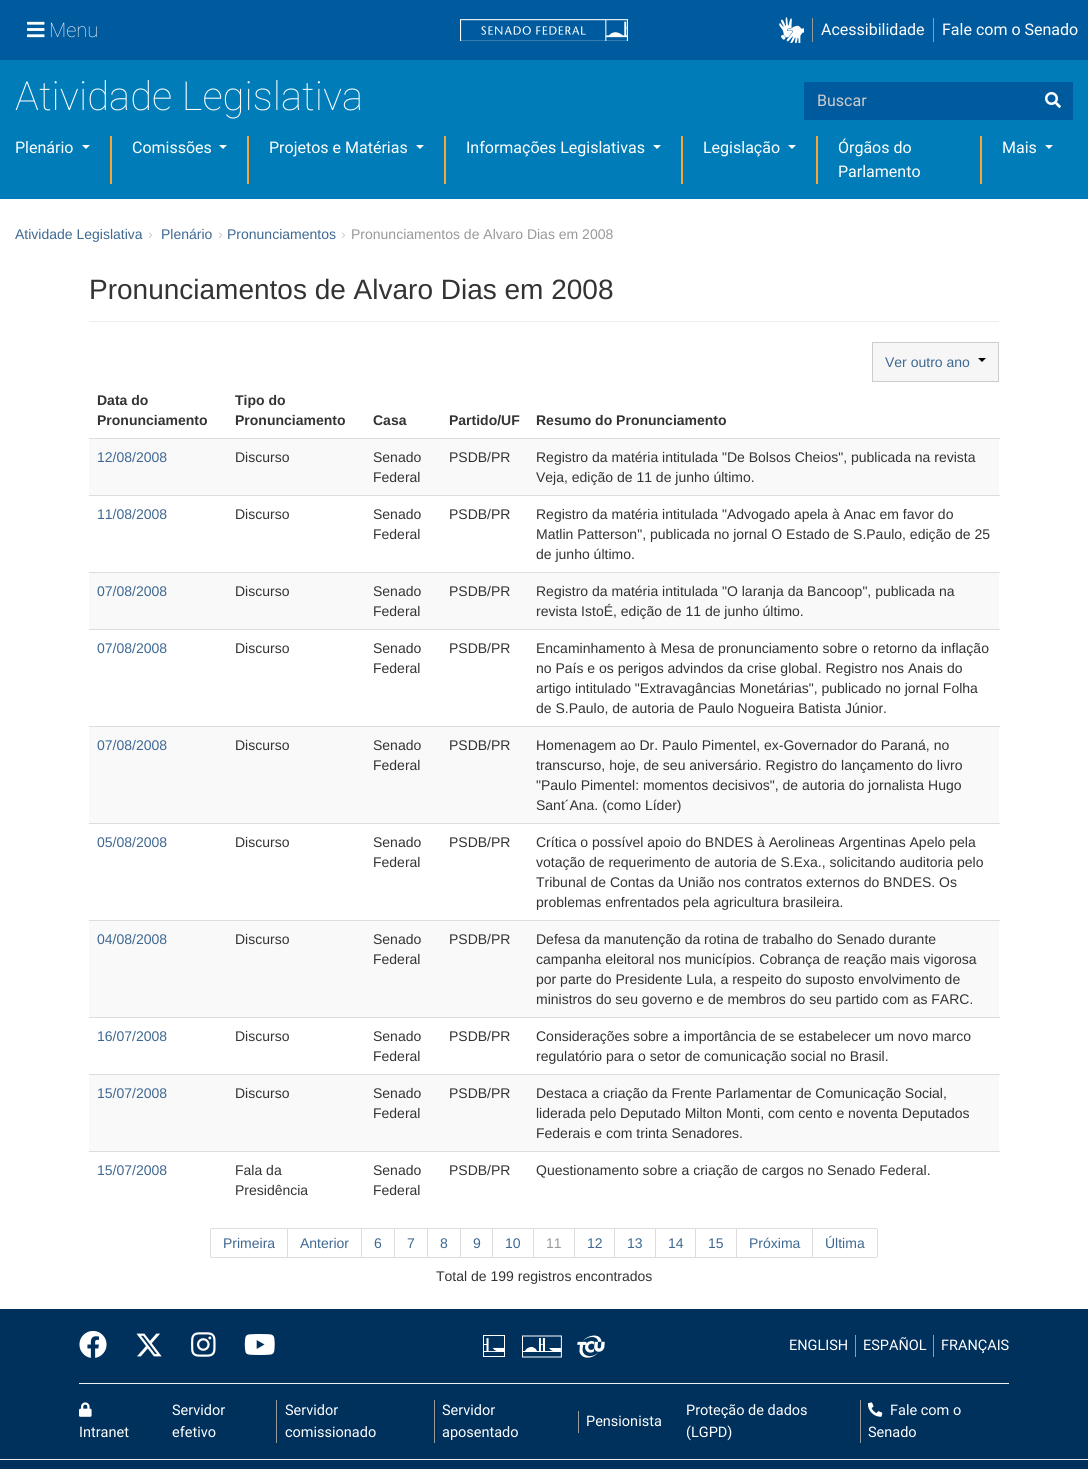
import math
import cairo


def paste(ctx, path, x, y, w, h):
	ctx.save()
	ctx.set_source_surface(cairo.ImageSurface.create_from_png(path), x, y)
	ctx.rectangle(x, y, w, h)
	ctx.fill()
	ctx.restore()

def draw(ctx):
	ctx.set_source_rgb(1, 1, 1)
	ctx.paint()
	ctx.set_source_rgb(0, 0.357, 0.62)
	ctx.rectangle(0, 0, 1088, 60)
	ctx.fill()
	paste(ctx, 'media/1.png', 27, 21, 18, 17)
	ctx.select_font_face('Roboto Thin')
	ctx.set_font_size(20)
	ctx.set_source_rgb(1, 1, 1)
	ctx.move_to(49, 37)
	ctx.show_text('Menu')
	paste(ctx, 'media/2.png', 460, 19, 168, 22)
	paste(ctx, 'media/3.png', 779, 17, 25, 26)
	ctx.set_source_rgb(0.6, 0.6, 0.6)
	ctx.rectangle(812, 18, 1, 24)
	ctx.fill()
	ctx.select_font_face('Roboto')
	ctx.set_font_size(16)
	ctx.set_source_rgb(1, 1, 1)
	ctx.move_to(821, 35)
	ctx.show_text('Acessibilidade')
	ctx.set_source_rgb(0.6, 0.6, 0.6)
	ctx.rectangle(933, 18, 1, 24)
	ctx.fill()
	ctx.set_source_rgb(1, 1, 1)
	ctx.move_to(942, 35)
	ctx.show_text('Fale com o Senado')
	ctx.set_source_rgb(0, 0.49, 0.722)
	ctx.rectangle(0, 60, 1088, 139)
	ctx.fill()
	ctx.select_font_face('Roboto Thin')
	ctx.set_font_size(40)
	ctx.set_source_rgb(1, 1, 1)
	ctx.move_to(15, 110)
	ctx.show_text('Atividade Legislativa')
	ctx.set_source_rgb(0, 0.357, 0.62)
	ctx.rectangle(804, 82, 269, 38)
	ctx.fill()
	ctx.select_font_face('Roboto')
	ctx.set_font_size(16)
	ctx.set_source_rgb(0.8, 0.8, 0.8)
	ctx.move_to(817, 106)
	ctx.show_text('Buscar')
	paste(ctx, 'media/4.png', 1045, 92, 16, 16)
	ctx.set_source_rgb(1, 1, 1)
	ctx.move_to(15, 153)
	ctx.show_text('Plenário')
	ctx.new_path()
	ctx.move_to(82, 145)
	ctx.line_to(90, 145)
	ctx.line_to(86, 149)
	ctx.close_path()
	ctx.fill()
	ctx.set_source_rgb(0.98, 0.655, 0.192)
	ctx.rectangle(110, 136, 2, 48)
	ctx.fill()
	ctx.set_source_rgb(1, 1, 1)
	ctx.move_to(132, 153)
	ctx.show_text('Comissões')
	ctx.new_path()
	ctx.move_to(219, 145)
	ctx.line_to(227, 145)
	ctx.line_to(223, 149)
	ctx.close_path()
	ctx.fill()
	ctx.set_source_rgb(0.98, 0.655, 0.192)
	ctx.rectangle(247, 136, 2, 48)
	ctx.fill()
	ctx.set_source_rgb(1, 1, 1)
	ctx.move_to(269, 153)
	ctx.show_text('Projetos e Matérias')
	ctx.new_path()
	ctx.move_to(416, 145)
	ctx.line_to(424, 145)
	ctx.line_to(420, 149)
	ctx.close_path()
	ctx.fill()
	ctx.set_source_rgb(0.98, 0.655, 0.192)
	ctx.rectangle(444, 136, 2, 48)
	ctx.fill()
	ctx.set_source_rgb(1, 1, 1)
	ctx.move_to(466, 153)
	ctx.show_text('Informações Legislativas')
	ctx.new_path()
	ctx.move_to(653, 145)
	ctx.line_to(661, 145)
	ctx.line_to(657, 149)
	ctx.close_path()
	ctx.fill()
	ctx.set_source_rgb(0.98, 0.655, 0.192)
	ctx.rectangle(681, 136, 2, 48)
	ctx.fill()
	ctx.set_source_rgb(1, 1, 1)
	ctx.move_to(703, 153)
	ctx.show_text('Legislação')
	ctx.new_path()
	ctx.move_to(788, 145)
	ctx.line_to(796, 145)
	ctx.line_to(792, 149)
	ctx.close_path()
	ctx.fill()
	ctx.set_source_rgb(0.98, 0.655, 0.192)
	ctx.rectangle(816, 136, 2, 48)
	ctx.fill()
	ctx.set_source_rgb(1, 1, 1)
	ctx.move_to(838, 153)
	ctx.show_text('Órgãos do')
	ctx.move_to(838, 177)
	ctx.show_text('Parlamento')
	ctx.set_source_rgb(0.98, 0.655, 0.192)
	ctx.rectangle(980, 136, 2, 48)
	ctx.fill()
	ctx.set_source_rgb(1, 1, 1)
	ctx.move_to(1002, 153)
	ctx.show_text('Mais')
	ctx.new_path()
	ctx.move_to(1045, 145)
	ctx.line_to(1053, 145)
	ctx.line_to(1049, 149)
	ctx.close_path()
	ctx.fill()
	ctx.select_font_face('Liberation Sans')
	ctx.set_font_size(14)
	ctx.set_source_rgb(0.243, 0.408, 0.573)
	ctx.move_to(15, 239)
	ctx.show_text('Atividade Legislativa')
	ctx.set_source_rgb(0.8, 0.8, 0.8)
	ctx.move_to(148, 239)
	ctx.show_text('›')
	ctx.set_source_rgb(0.243, 0.408, 0.573)
	ctx.move_to(161, 239)
	ctx.show_text('Plenário')
	ctx.set_source_rgb(0.8, 0.8, 0.8)
	ctx.move_to(218, 239)
	ctx.show_text('›')
	ctx.set_source_rgb(0.243, 0.408, 0.573)
	ctx.move_to(227, 239)
	ctx.show_text('Pronunciamentos')
	ctx.set_source_rgb(0.8, 0.8, 0.8)
	ctx.move_to(341, 239)
	ctx.show_text('›')
	ctx.set_source_rgb(0.6, 0.6, 0.6)
	ctx.move_to(351, 239)
	ctx.show_text('Pronunciamentos de Alvaro Dias em 2008')
	ctx.set_source_rgb(0.933, 0.933, 0.933)
	ctx.rectangle(89, 321, 910, 1)
	ctx.fill()
	ctx.set_font_size(28)
	ctx.set_source_rgb(0.2, 0.2, 0.2)
	ctx.move_to(89, 299)
	ctx.show_text('Pronunciamentos de Alvaro Dias em 2008')
	ctx.set_source_rgb(0.961, 0.961, 0.961)
	ctx.rectangle(872.5, 342.5, 126, 39)
	ctx.fill_preserve()
	ctx.set_source_rgb(0.8, 0.8, 0.8)
	ctx.set_line_width(1)
	ctx.stroke()
	ctx.set_font_size(14)
	ctx.set_source_rgb(0.243, 0.408, 0.573)
	ctx.move_to(885, 367)
	ctx.show_text('Ver outro ano')
	ctx.set_source_rgb(0, 0, 0)
	ctx.new_path()
	ctx.move_to(978, 358)
	ctx.line_to(986, 358)
	ctx.line_to(982, 362)
	ctx.close_path()
	ctx.fill()
	ctx.select_font_face('Liberation Sans', cairo.FONT_SLANT_NORMAL, cairo.FONT_WEIGHT_BOLD)
	ctx.set_source_rgb(0.2, 0.2, 0.2)
	for x, y, s in [
		(97, 405, 'Data do'),
		(97, 425, 'Pronunciamento'),
		(235, 405, 'Tipo do'),
		(235, 425, 'Pronunciamento'),
		(373, 425, 'Casa'),
		(449, 425, 'Partido/UF'),
		(536, 425, 'Resumo do Pronunciamento'),
	]:
		ctx.move_to(x, y)
		ctx.show_text(s)
	ctx.set_source_rgb(0.976, 0.976, 0.976)
	ctx.rectangle(89, 439, 910, 56)
	ctx.fill()
	ctx.select_font_face('Liberation Sans')
	ctx.set_source_rgb(0.243, 0.408, 0.573)
	ctx.move_to(97, 462)
	ctx.show_text('12/08/2008')
	ctx.set_source_rgb(0.2, 0.2, 0.2)
	for x, y, s in [
		(235, 462, 'Discurso'),
		(373, 462, 'Senado'),
		(373, 482, 'Federal'),
		(449, 462, 'PSDB/PR'),
	]:
		ctx.move_to(x, y)
		ctx.show_text(s)
	ctx.set_source_rgb(0.867, 0.867, 0.867)
	ctx.rectangle(89, 438, 911, 1)
	ctx.fill()
	ctx.set_source_rgb(0.2, 0.2, 0.2)
	ctx.move_to(536, 462)
	ctx.show_text('Registro da matéria intitulada "De Bolsos Cheios", publicada na revista')
	ctx.move_to(536, 482)
	ctx.show_text('Veja, edição de 11 de junho último.')
	ctx.set_source_rgb(0.243, 0.408, 0.573)
	ctx.move_to(97, 519)
	ctx.show_text('11/08/2008')
	ctx.set_source_rgb(0.2, 0.2, 0.2)
	for x, y, s in [
		(235, 519, 'Discurso'),
		(373, 519, 'Senado'),
		(373, 539, 'Federal'),
		(449, 519, 'PSDB/PR'),
	]:
		ctx.move_to(x, y)
		ctx.show_text(s)
	ctx.set_source_rgb(0.867, 0.867, 0.867)
	ctx.rectangle(89, 495, 911, 1)
	ctx.fill()
	ctx.set_source_rgb(0.2, 0.2, 0.2)
	for x, y, s in [
		(536, 519, 'Registro da matéria intitulada "Advogado apela à Anac em favor do'),
		(536, 539, 'Matlin Patterson", publicada no jornal O Estado de S.Paulo, edição de 25'),
		(536, 559, 'de junho último.'),
	]:
		ctx.move_to(x, y)
		ctx.show_text(s)
	ctx.set_source_rgb(0.976, 0.976, 0.976)
	ctx.rectangle(89, 573, 910, 56)
	ctx.fill()
	ctx.set_source_rgb(0.243, 0.408, 0.573)
	ctx.move_to(97, 596)
	ctx.show_text('07/08/2008')
	ctx.set_source_rgb(0.2, 0.2, 0.2)
	for x, y, s in [
		(235, 596, 'Discurso'),
		(373, 596, 'Senado'),
		(373, 616, 'Federal'),
		(449, 596, 'PSDB/PR'),
	]:
		ctx.move_to(x, y)
		ctx.show_text(s)
	ctx.set_source_rgb(0.867, 0.867, 0.867)
	ctx.rectangle(89, 572, 911, 1)
	ctx.fill()
	ctx.set_source_rgb(0.2, 0.2, 0.2)
	ctx.move_to(536, 596)
	ctx.show_text('Registro da matéria intitulada "O laranja da Bancoop", publicada na')
	ctx.move_to(536, 616)
	ctx.show_text('revista IstoÉ, edição de 11 de junho último.')
	ctx.set_source_rgb(0.243, 0.408, 0.573)
	ctx.move_to(97, 653)
	ctx.show_text('07/08/2008')
	ctx.set_source_rgb(0.2, 0.2, 0.2)
	for x, y, s in [
		(235, 653, 'Discurso'),
		(373, 653, 'Senado'),
		(373, 673, 'Federal'),
		(449, 653, 'PSDB/PR'),
	]:
		ctx.move_to(x, y)
		ctx.show_text(s)
	ctx.set_source_rgb(0.867, 0.867, 0.867)
	ctx.rectangle(89, 629, 911, 1)
	ctx.fill()
	ctx.set_source_rgb(0.2, 0.2, 0.2)
	for x, y, s in [
		(536, 653, 'Encaminhamento à Mesa de pronunciamento sobre o retorno da inflação'),
		(536, 673, 'no País e os perigos advindos da crise global. Registro nos Anais do'),
		(536, 693, 'artigo intitulado "Extravagâncias Monetárias", publicado no jornal Folha'),
		(536, 713, 'de S.Paulo, de autoria de Paulo Nogueira Batista Júnior.'),
	]:
		ctx.move_to(x, y)
		ctx.show_text(s)
	ctx.set_source_rgb(0.976, 0.976, 0.976)
	ctx.rectangle(89, 727, 910, 96)
	ctx.fill()
	ctx.set_source_rgb(0.243, 0.408, 0.573)
	ctx.move_to(97, 750)
	ctx.show_text('07/08/2008')
	ctx.set_source_rgb(0.2, 0.2, 0.2)
	for x, y, s in [
		(235, 750, 'Discurso'),
		(373, 750, 'Senado'),
		(373, 770, 'Federal'),
		(449, 750, 'PSDB/PR'),
	]:
		ctx.move_to(x, y)
		ctx.show_text(s)
	ctx.set_source_rgb(0.867, 0.867, 0.867)
	ctx.rectangle(89, 726, 911, 1)
	ctx.fill()
	ctx.set_source_rgb(0.2, 0.2, 0.2)
	for x, y, s in [
		(536, 750, 'Homenagem ao Dr. Paulo Pimentel, ex-Governador do Paraná, no'),
		(536, 770, 'transcurso, hoje, de seu aniversário. Registro do lançamento do livro'),
		(536, 790, '"Paulo Pimentel: momentos decisivos", de autoria do jornalista Hugo'),
		(536, 810, 'Sant´Ana. (como Líder)'),
	]:
		ctx.move_to(x, y)
		ctx.show_text(s)
	ctx.set_source_rgb(0.243, 0.408, 0.573)
	ctx.move_to(97, 847)
	ctx.show_text('05/08/2008')
	ctx.set_source_rgb(0.2, 0.2, 0.2)
	for x, y, s in [
		(235, 847, 'Discurso'),
		(373, 847, 'Senado'),
		(373, 867, 'Federal'),
		(449, 847, 'PSDB/PR'),
	]:
		ctx.move_to(x, y)
		ctx.show_text(s)
	ctx.set_source_rgb(0.867, 0.867, 0.867)
	ctx.rectangle(89, 823, 911, 1)
	ctx.fill()
	ctx.set_source_rgb(0.2, 0.2, 0.2)
	for x, y, s in [
		(536, 847, 'Crítica o possível apoio do BNDES à Aerolineas Argentinas Apelo pela'),
		(536, 867, 'votação de requerimento de autoria de S.Exa., solicitando auditoria pelo'),
		(536, 887, 'Tribunal de Contas da União nos contratos externos do BNDES. Os'),
		(536, 907, 'problemas enfrentados pela agricultura brasileira.'),
	]:
		ctx.move_to(x, y)
		ctx.show_text(s)
	ctx.set_source_rgb(0.976, 0.976, 0.976)
	ctx.rectangle(89, 921, 910, 96)
	ctx.fill()
	ctx.set_source_rgb(0.243, 0.408, 0.573)
	ctx.move_to(97, 944)
	ctx.show_text('04/08/2008')
	ctx.set_source_rgb(0.2, 0.2, 0.2)
	for x, y, s in [
		(235, 944, 'Discurso'),
		(373, 944, 'Senado'),
		(373, 964, 'Federal'),
		(449, 944, 'PSDB/PR'),
	]:
		ctx.move_to(x, y)
		ctx.show_text(s)
	ctx.set_source_rgb(0.867, 0.867, 0.867)
	ctx.rectangle(89, 920, 911, 1)
	ctx.fill()
	ctx.set_source_rgb(0.2, 0.2, 0.2)
	for x, y, s in [
		(536, 944, 'Defesa da manutenção da rotina de trabalho do Senado durante'),
		(536, 964, 'campanha eleitoral nos municípios. Cobrança de reação mais vigorosa'),
		(536, 984, 'por parte do Presidente Lula, a respeito do suposto envolvimento de'),
		(536, 1004, 'ministros do seu governo e de membros do seu partido com as FARC.'),
	]:
		ctx.move_to(x, y)
		ctx.show_text(s)
	ctx.set_source_rgb(0.243, 0.408, 0.573)
	ctx.move_to(97, 1041)
	ctx.show_text('16/07/2008')
	ctx.set_source_rgb(0.2, 0.2, 0.2)
	for x, y, s in [
		(235, 1041, 'Discurso'),
		(373, 1041, 'Senado'),
		(373, 1061, 'Federal'),
		(449, 1041, 'PSDB/PR'),
	]:
		ctx.move_to(x, y)
		ctx.show_text(s)
	ctx.set_source_rgb(0.867, 0.867, 0.867)
	ctx.rectangle(89, 1017, 911, 1)
	ctx.fill()
	ctx.set_source_rgb(0.2, 0.2, 0.2)
	ctx.move_to(536, 1041)
	ctx.show_text('Considerações sobre a importância de se estabelecer um novo marco')
	ctx.move_to(536, 1061)
	ctx.show_text('regulatório para o setor de comunicação social no Brasil.')
	ctx.set_source_rgb(0.976, 0.976, 0.976)
	ctx.rectangle(89, 1075, 910, 76)
	ctx.fill()
	ctx.set_source_rgb(0.243, 0.408, 0.573)
	ctx.move_to(97, 1098)
	ctx.show_text('15/07/2008')
	ctx.set_source_rgb(0.2, 0.2, 0.2)
	for x, y, s in [
		(235, 1098, 'Discurso'),
		(373, 1098, 'Senado'),
		(373, 1118, 'Federal'),
		(449, 1098, 'PSDB/PR'),
	]:
		ctx.move_to(x, y)
		ctx.show_text(s)
	ctx.set_source_rgb(0.867, 0.867, 0.867)
	ctx.rectangle(89, 1074, 911, 1)
	ctx.fill()
	ctx.set_source_rgb(0.2, 0.2, 0.2)
	for x, y, s in [
		(536, 1098, 'Destaca a criação da Frente Parlamentar de Comunicação Social,'),
		(536, 1118, 'liderada pelo Deputado Milton Monti, com cento e noventa Deputados'),
		(536, 1138, 'Federais e com trinta Senadores.'),
	]:
		ctx.move_to(x, y)
		ctx.show_text(s)
	ctx.set_source_rgb(0.243, 0.408, 0.573)
	ctx.move_to(97, 1175)
	ctx.show_text('15/07/2008')
	ctx.set_source_rgb(0.2, 0.2, 0.2)
	for x, y, s in [
		(235, 1175, 'Fala da'),
		(235, 1195, 'Presidência'),
		(373, 1175, 'Senado'),
		(373, 1195, 'Federal'),
		(449, 1175, 'PSDB/PR'),
	]:
		ctx.move_to(x, y)
		ctx.show_text(s)
	ctx.set_source_rgb(0.867, 0.867, 0.867)
	ctx.rectangle(89, 1151, 911, 1)
	ctx.fill()
	ctx.set_source_rgb(0.2, 0.2, 0.2)
	ctx.move_to(536, 1175)
	ctx.show_text('Questionamento sobre a criação de cargos no Senado Federal.')
	ctx.new_path()
	ctx.move_to(212, 1228.5)
	ctx.line_to(287.5, 1228.5)
	ctx.line_to(287.5, 1257.5)
	ctx.line_to(212, 1257.5)
	ctx.curve_to(211, 1257.5, 210.5, 1257, 210.5, 1256)
	ctx.line_to(210.5, 1230)
	ctx.curve_to(210.5, 1229, 211, 1228.5, 212, 1228.5)
	ctx.close_path()
	ctx.set_source_rgb(0.867, 0.867, 0.867)
	ctx.stroke()
	ctx.set_source_rgb(0.243, 0.408, 0.573)
	ctx.move_to(223, 1248)
	ctx.show_text('Primeira')
	ctx.set_source_rgb(0.867, 0.867, 0.867)
	ctx.rectangle(288, 1228, 589, 1)
	ctx.rectangle(361, 1228, 1, 30)
	ctx.rectangle(288, 1257, 74, 1)
	ctx.fill()
	ctx.set_source_rgb(0.243, 0.408, 0.573)
	ctx.move_to(300, 1248)
	ctx.show_text('Anterior')
	ctx.set_source_rgb(0.867, 0.867, 0.867)
	ctx.rectangle(394, 1228, 1, 30)
	ctx.fill()
	ctx.rectangle(362, 1257, 33, 1)
	ctx.fill()
	ctx.set_source_rgb(0.243, 0.408, 0.573)
	ctx.move_to(374, 1248)
	ctx.show_text('6')
	ctx.set_source_rgb(0.867, 0.867, 0.867)
	ctx.rectangle(427, 1228, 1, 30)
	ctx.fill()
	ctx.rectangle(395, 1257, 33, 1)
	ctx.fill()
	ctx.set_source_rgb(0.243, 0.408, 0.573)
	ctx.move_to(407, 1248)
	ctx.show_text('7')
	ctx.set_source_rgb(0.867, 0.867, 0.867)
	ctx.rectangle(460, 1228, 1, 30)
	ctx.fill()
	ctx.rectangle(428, 1257, 33, 1)
	ctx.fill()
	ctx.set_source_rgb(0.243, 0.408, 0.573)
	ctx.move_to(440, 1248)
	ctx.show_text('8')
	ctx.set_source_rgb(0.867, 0.867, 0.867)
	ctx.rectangle(492, 1228, 1, 30)
	ctx.fill()
	ctx.rectangle(461, 1257, 32, 1)
	ctx.fill()
	ctx.set_source_rgb(0.243, 0.408, 0.573)
	ctx.move_to(473, 1248)
	ctx.show_text('9')
	ctx.set_source_rgb(0.867, 0.867, 0.867)
	ctx.rectangle(533, 1228, 1, 30)
	ctx.fill()
	ctx.rectangle(493, 1257, 41, 1)
	ctx.fill()
	ctx.set_source_rgb(0.243, 0.408, 0.573)
	ctx.move_to(505, 1248)
	ctx.show_text('10')
	ctx.set_source_rgb(0.867, 0.867, 0.867)
	ctx.rectangle(574, 1228, 1, 30)
	ctx.fill()
	ctx.rectangle(534, 1257, 41, 1)
	ctx.fill()
	ctx.set_source_rgb(0.6, 0.6, 0.6)
	ctx.move_to(546, 1248)
	ctx.show_text('11')
	ctx.set_source_rgb(0.867, 0.867, 0.867)
	ctx.rectangle(614, 1228, 1, 30)
	ctx.fill()
	ctx.rectangle(575, 1257, 40, 1)
	ctx.fill()
	ctx.set_source_rgb(0.243, 0.408, 0.573)
	ctx.move_to(587, 1248)
	ctx.show_text('12')
	ctx.set_source_rgb(0.867, 0.867, 0.867)
	ctx.rectangle(655, 1228, 1, 30)
	ctx.fill()
	ctx.rectangle(615, 1257, 41, 1)
	ctx.fill()
	ctx.set_source_rgb(0.243, 0.408, 0.573)
	ctx.move_to(627, 1248)
	ctx.show_text('13')
	ctx.set_source_rgb(0.867, 0.867, 0.867)
	ctx.rectangle(695, 1228, 1, 30)
	ctx.fill()
	ctx.rectangle(656, 1257, 40, 1)
	ctx.fill()
	ctx.set_source_rgb(0.243, 0.408, 0.573)
	ctx.move_to(668, 1248)
	ctx.show_text('14')
	ctx.set_source_rgb(0.867, 0.867, 0.867)
	ctx.rectangle(736, 1228, 1, 30)
	ctx.fill()
	ctx.rectangle(696, 1257, 41, 1)
	ctx.fill()
	ctx.set_source_rgb(0.243, 0.408, 0.573)
	ctx.move_to(708, 1248)
	ctx.show_text('15')
	ctx.set_source_rgb(0.867, 0.867, 0.867)
	ctx.rectangle(812, 1228, 1, 30)
	ctx.fill()
	ctx.rectangle(737, 1257, 140, 1)
	ctx.fill()
	ctx.set_source_rgb(0.243, 0.408, 0.573)
	ctx.move_to(749, 1248)
	ctx.show_text('Próxima')
	ctx.set_source_rgb(0.867, 0.867, 0.867)
	ctx.rectangle(877, 1229, 1, 28)
	ctx.fill()
	ctx.set_source_rgb(0.243, 0.408, 0.573)
	ctx.move_to(825, 1248)
	ctx.show_text('Última')
	ctx.set_source_rgb(0.2, 0.2, 0.2)
	ctx.move_to(436, 1281)
	ctx.show_text('Total de 199 registros encontrados')
	ctx.set_source_rgb(0, 0.188, 0.361)
	ctx.rectangle(0, 1309, 1088, 160)
	ctx.fill()
	paste(ctx, 'media/5.png', 79, 1331, 28, 27)
	paste(ctx, 'media/6.png', 136, 1333, 26, 24)
	paste(ctx, 'media/7.png', 191, 1332, 25, 25)
	paste(ctx, 'media/8.png', 244, 1334, 31, 21)
	paste(ctx, 'media/9.png', 483, 1335, 22, 22)
	paste(ctx, 'media/10.png', 522, 1335, 40, 23)
	paste(ctx, 'media/11.png', 577, 1335, 28, 23)
	ctx.select_font_face('Roboto')
	ctx.set_font_size(14.5)
	ctx.set_source_rgb(1, 1, 1)
	ctx.move_to(789, 1350)
	ctx.show_text('ENGLISH')
	ctx.set_source_rgb(0.6, 0.6, 0.6)
	ctx.rectangle(855, 1335, 1, 22)
	ctx.fill()
	ctx.set_source_rgb(1, 1, 1)
	ctx.move_to(863, 1350)
	ctx.show_text('ESPAÑOL')
	ctx.set_source_rgb(0.6, 0.6, 0.6)
	ctx.rectangle(933, 1335, 1, 22)
	ctx.fill()
	ctx.set_source_rgb(1, 1, 1)
	ctx.move_to(941, 1350)
	ctx.show_text('FRANÇAIS')
	ctx.set_source_rgb(0.945, 0.945, 0.945)
	ctx.rectangle(79, 1383, 930, 1)
	ctx.fill()
	paste(ctx, 'media/12.png', 79, 1402, 13, 15)
	ctx.set_source_rgb(1, 1, 1)
	for x, y, s in [
		(79, 1437, 'Intranet'),
		(172, 1415, 'Servidor'),
		(172, 1437, 'efetivo'),
	]:
		ctx.move_to(x, y)
		ctx.show_text(s)
	ctx.set_source_rgb(0.6, 0.6, 0.6)
	ctx.rectangle(276, 1400, 1, 43)
	ctx.fill()
	ctx.set_source_rgb(1, 1, 1)
	ctx.move_to(285, 1415)
	ctx.show_text('Servidor')
	ctx.move_to(285, 1437)
	ctx.show_text('comissionado')
	ctx.set_source_rgb(0.6, 0.6, 0.6)
	ctx.rectangle(434, 1400, 1, 43)
	ctx.fill()
	ctx.set_source_rgb(1, 1, 1)
	ctx.move_to(442, 1415)
	ctx.show_text('Servidor')
	ctx.move_to(442, 1437)
	ctx.show_text('aposentado')
	ctx.set_source_rgb(0.6, 0.6, 0.6)
	ctx.rectangle(578, 1411, 1, 22)
	ctx.fill()
	ctx.set_source_rgb(1, 1, 1)
	for x, y, s in [
		(586, 1426, 'Pensionista'),
		(686, 1415, 'Proteção de dados'),
		(686, 1437, '(LGPD)'),
	]:
		ctx.move_to(x, y)
		ctx.show_text(s)
	ctx.set_source_rgb(0.6, 0.6, 0.6)
	ctx.rectangle(860, 1400, 1, 43)
	ctx.fill()
	paste(ctx, 'media/13.png', 867, 1402, 16, 15)
	ctx.set_source_rgb(1, 1, 1)
	ctx.move_to(890, 1415)
	ctx.show_text('Fale com o')
	ctx.move_to(868, 1437)
	ctx.show_text('Senado')
	ctx.set_source_rgb(0.945, 0.945, 0.945)
	ctx.rectangle(0, 1459, 1088, 1)
	ctx.fill()


surface = cairo.ImageSurface(cairo.FORMAT_RGB24, 1088, 1469)
ctx = cairo.Context(surface)
options = cairo.FontOptions()
options.set_hint_metrics(cairo.HINT_METRICS_OFF)
options.set_hint_style(cairo.HINT_STYLE_NONE)
ctx.set_font_options(options)
ctx.set_miter_limit(4)
draw(ctx)
surface.write_to_png('image.png')
